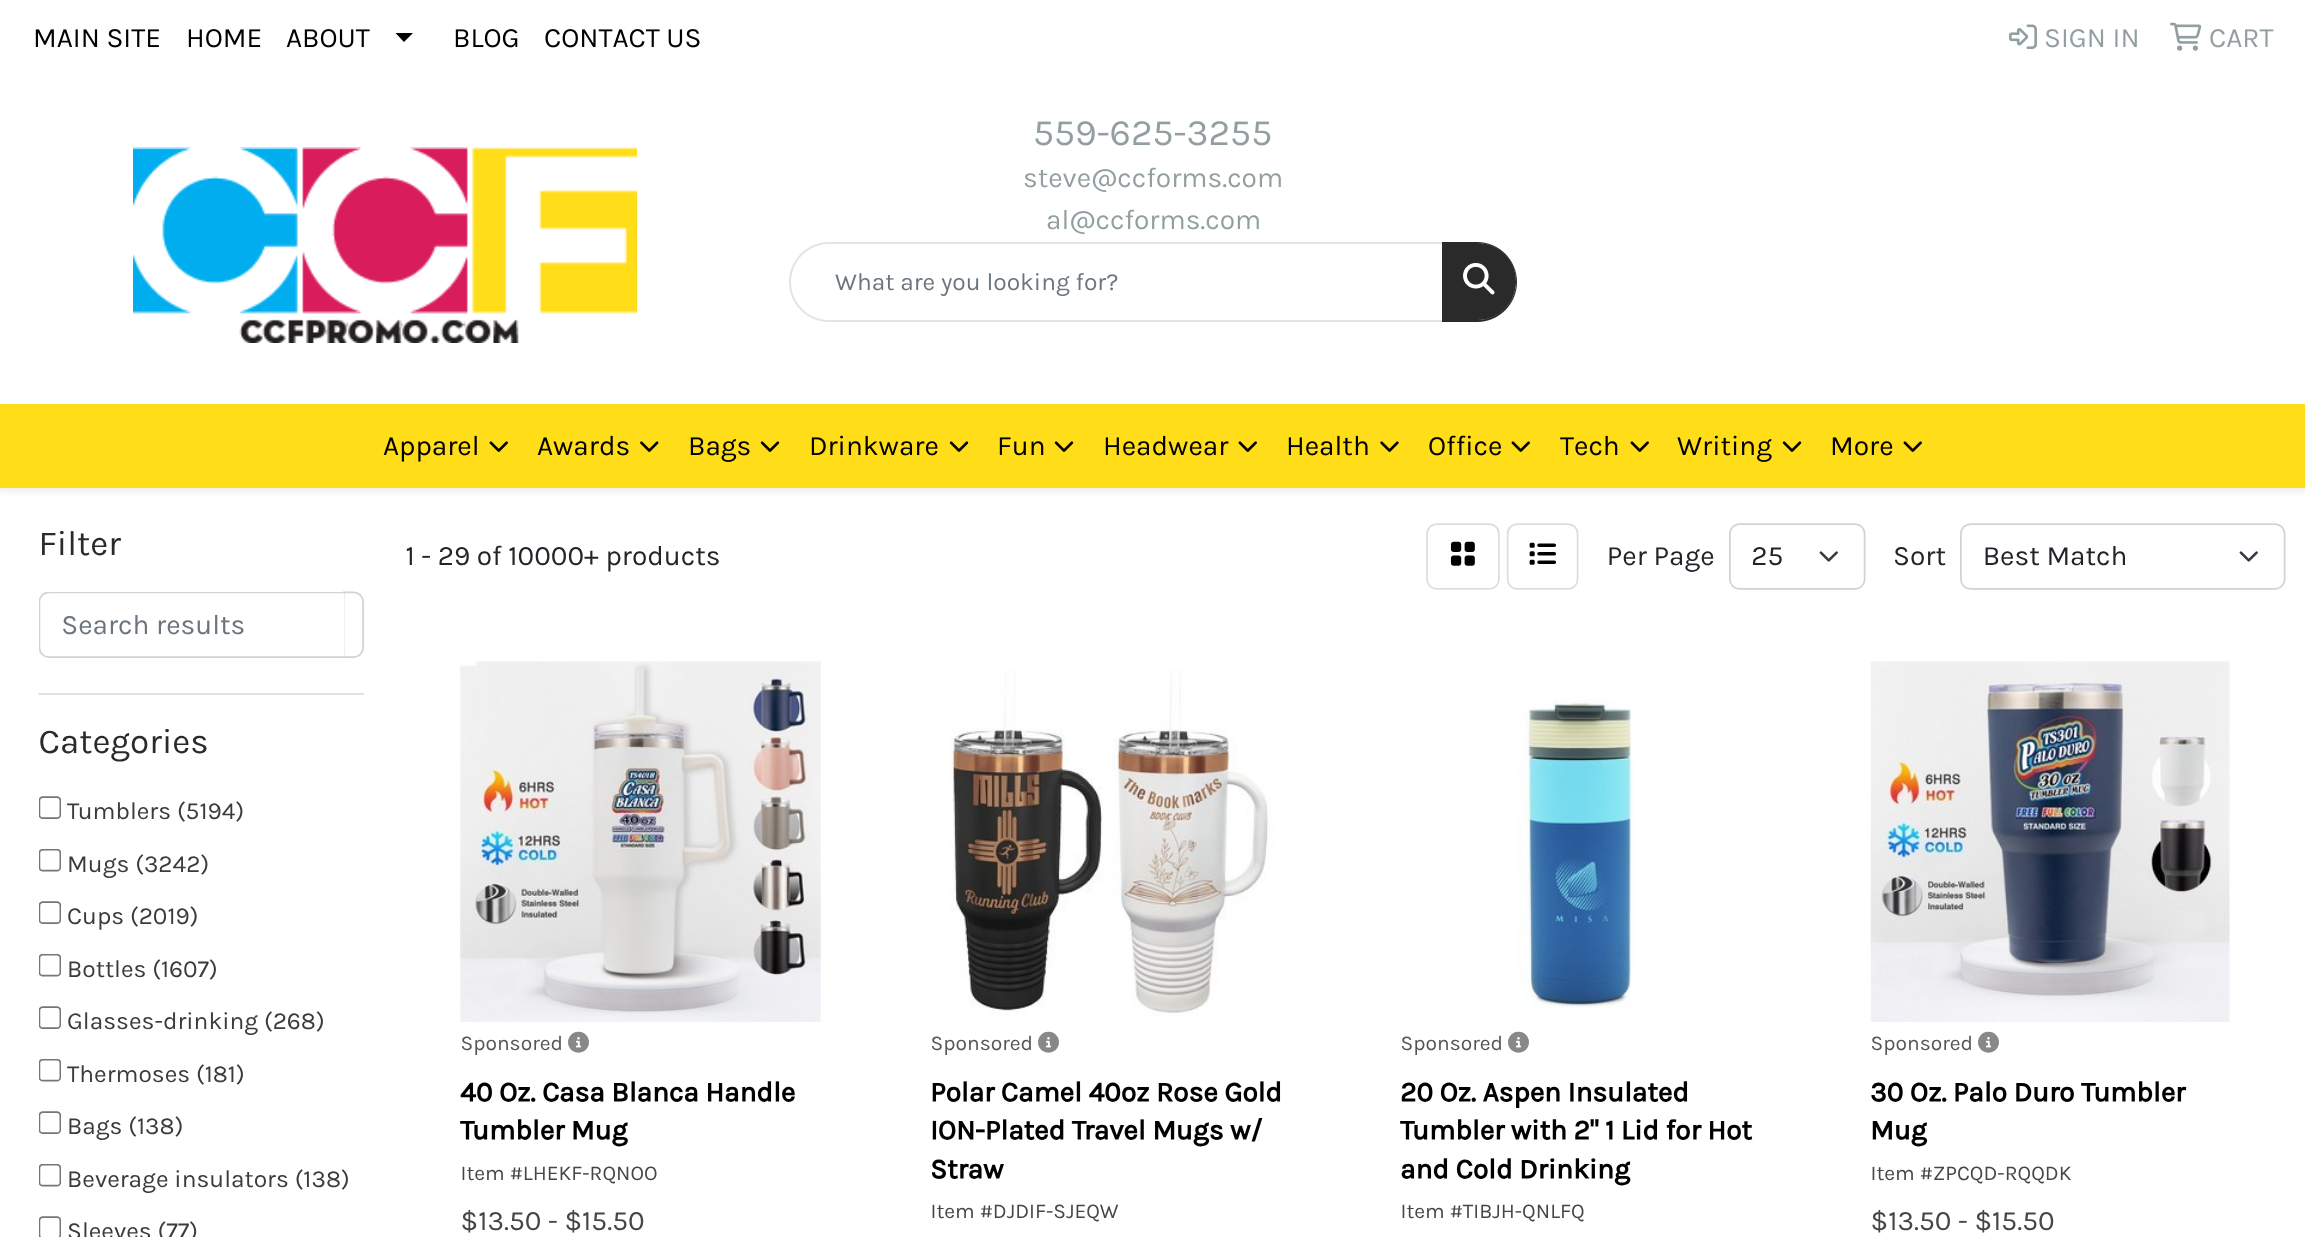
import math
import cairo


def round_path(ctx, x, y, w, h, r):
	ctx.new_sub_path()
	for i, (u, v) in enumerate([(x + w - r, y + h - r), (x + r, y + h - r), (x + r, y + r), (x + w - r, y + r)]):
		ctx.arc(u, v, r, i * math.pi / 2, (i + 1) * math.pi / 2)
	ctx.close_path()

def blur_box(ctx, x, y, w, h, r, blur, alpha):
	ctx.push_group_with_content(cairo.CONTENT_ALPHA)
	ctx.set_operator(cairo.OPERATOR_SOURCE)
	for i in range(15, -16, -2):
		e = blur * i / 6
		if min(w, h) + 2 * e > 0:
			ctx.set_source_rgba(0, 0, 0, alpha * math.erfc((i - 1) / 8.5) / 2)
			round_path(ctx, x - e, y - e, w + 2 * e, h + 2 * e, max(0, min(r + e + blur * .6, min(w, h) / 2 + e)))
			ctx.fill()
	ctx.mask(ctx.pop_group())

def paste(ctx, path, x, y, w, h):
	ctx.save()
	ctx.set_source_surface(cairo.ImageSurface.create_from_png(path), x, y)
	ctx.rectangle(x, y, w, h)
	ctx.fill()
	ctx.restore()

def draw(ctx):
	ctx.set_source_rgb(1, 1, 1)
	ctx.paint()
	ctx.select_font_face('Karla')
	ctx.set_font_size(28)
	ctx.set_source_rgb(0, 0, 0)
	for x, y, s in [
		(33, 47, 'MAIN SITE'),
		(186, 47, 'HOME'),
		(286, 47, 'ABOUT'),
	]:
		ctx.move_to(x, y)
		ctx.show_text(s)
	ctx.new_path()
	ctx.move_to(395.5, 33)
	ctx.line_to(413, 33)
	ctx.line_to(404, 42)
	ctx.close_path()
	ctx.fill()
	ctx.move_to(453, 47)
	ctx.show_text('BLOG')
	ctx.move_to(544, 47)
	ctx.show_text('CONTACT US')
	paste(ctx, 'media/1.png', 2009, 24, 28, 25)
	ctx.set_source_rgb(0.569, 0.624, 0.627)
	ctx.move_to(2044, 47)
	ctx.show_text('SIGN IN')
	paste(ctx, 'media/2.png', 2170, 22, 32, 29)
	ctx.move_to(2209, 47)
	ctx.show_text('CART')
	paste(ctx, 'media/3.png', 133, 147, 504, 196)
	ctx.set_font_size(37.25)
	ctx.move_to(1033, 145)
	ctx.show_text('559-625-3255')
	ctx.set_font_size(28)
	ctx.move_to(1023, 187)
	ctx.show_text('steve@ccforms.com')
	ctx.move_to(1046, 229)
	ctx.show_text('al@ccforms.com')
	ctx.new_path()
	ctx.move_to(829, 243)
	ctx.line_to(1443, 243)
	ctx.line_to(1443, 321)
	ctx.line_to(829, 321)
	ctx.curve_to(807.5, 321, 790, 303.5, 790, 282)
	ctx.curve_to(790, 260.5, 807.5, 243, 829, 243)
	ctx.close_path()
	ctx.set_source_rgb(0.894, 0.894, 0.894)
	ctx.stroke()
	ctx.set_font_size(24.5)
	ctx.set_source_rgb(0.424, 0.459, 0.49)
	ctx.move_to(835, 290)
	ctx.show_text('What are you looking for?')
	ctx.set_source_rgb(0.165, 0.165, 0.165)
	ctx.new_path()
	ctx.move_to(1442, 243)
	ctx.line_to(1477.5, 243)
	ctx.curve_to(1499, 243, 1516, 260, 1516, 281.5)
	ctx.curve_to(1516, 303, 1499, 320, 1477.5, 320)
	ctx.line_to(1442, 320)
	ctx.close_path()
	ctx.fill()
	ctx.set_fill_rule(cairo.FILL_RULE_EVEN_ODD)
	ctx.new_path()
	ctx.move_to(1442, 242)
	ctx.line_to(1477, 242)
	ctx.curve_to(1499, 242, 1517, 260, 1517, 282)
	ctx.curve_to(1517, 304, 1499, 322, 1477, 322)
	ctx.line_to(1442, 322)
	ctx.close_path()
	ctx.move_to(1442, 243)
	ctx.line_to(1477, 243)
	ctx.curve_to(1498, 243, 1516, 260, 1516, 282)
	ctx.curve_to(1516, 303, 1498, 320, 1477, 320)
	ctx.line_to(1442, 320)
	ctx.close_path()
	ctx.fill()
	paste(ctx, 'media/4.png', 1463, 262, 32, 33)
	ctx.set_source_rgb(0, 0, 0)
	blur_box(ctx, 0, 408, 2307, 84, 0, 3.5, 0.07)
	ctx.set_source_rgb(1, 0.867, 0.094)
	ctx.rectangle(0, 404, 2305, 84)
	ctx.fill()
	ctx.set_font_size(28)
	ctx.set_source_rgb(0, 0, 0)
	ctx.move_to(383, 455)
	ctx.show_text('Apparel')
	paste(ctx, 'media/5.png', 489, 441, 19, 11)
	ctx.move_to(537, 455)
	ctx.show_text('Awards')
	paste(ctx, 'media/6.png', 640, 441, 19, 11)
	ctx.move_to(688, 455)
	ctx.show_text('Bags')
	paste(ctx, 'media/7.png', 760, 441, 20, 11)
	ctx.move_to(809, 455)
	ctx.show_text('Drinkware')
	paste(ctx, 'media/7.png', 949, 441, 20, 11)
	ctx.move_to(997, 455)
	ctx.show_text('Fun')
	paste(ctx, 'media/7.png', 1054, 441, 20, 11)
	ctx.move_to(1103, 455)
	ctx.show_text('Headwear')
	paste(ctx, 'media/5.png', 1238, 441, 19, 11)
	ctx.move_to(1286, 455)
	ctx.show_text('Health')
	paste(ctx, 'media/8.png', 1380, 441, 19, 11)
	ctx.move_to(1428, 455)
	ctx.show_text('Office')
	paste(ctx, 'media/5.png', 1511, 441, 19, 11)
	ctx.move_to(1560, 455)
	ctx.show_text('Tech')
	paste(ctx, 'media/5.png', 1630, 441, 19, 11)
	ctx.move_to(1677, 455)
	ctx.show_text('Writing')
	paste(ctx, 'media/7.png', 1782, 441, 20, 11)
	ctx.move_to(1830, 455)
	ctx.show_text('More')
	paste(ctx, 'media/5.png', 1903, 441, 19, 11)
	paste(ctx, 'media/9.png', 38, 523, 2248, 714)


surface = cairo.ImageSurface(cairo.FORMAT_RGB24, 2305, 1237)
ctx = cairo.Context(surface)
options = cairo.FontOptions()
options.set_hint_metrics(cairo.HINT_METRICS_OFF)
options.set_hint_style(cairo.HINT_STYLE_NONE)
ctx.set_font_options(options)
ctx.set_miter_limit(4)
draw(ctx)
surface.write_to_png('image.png')
